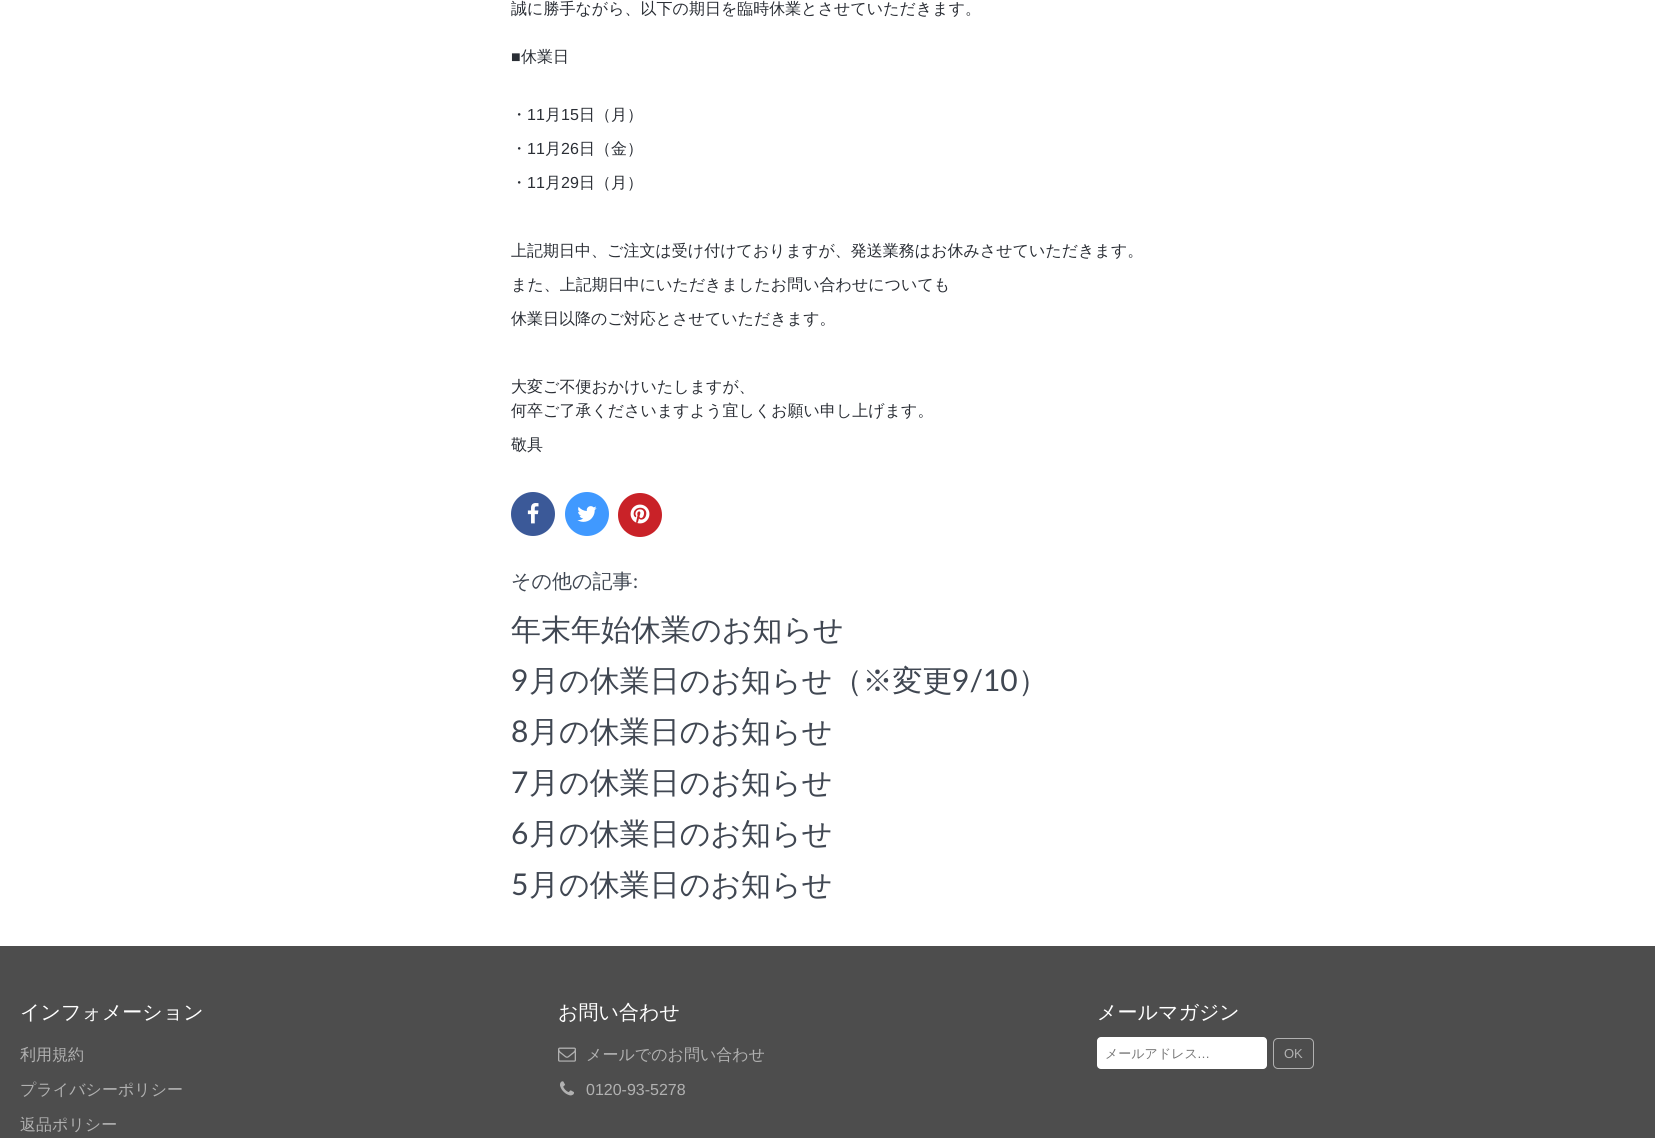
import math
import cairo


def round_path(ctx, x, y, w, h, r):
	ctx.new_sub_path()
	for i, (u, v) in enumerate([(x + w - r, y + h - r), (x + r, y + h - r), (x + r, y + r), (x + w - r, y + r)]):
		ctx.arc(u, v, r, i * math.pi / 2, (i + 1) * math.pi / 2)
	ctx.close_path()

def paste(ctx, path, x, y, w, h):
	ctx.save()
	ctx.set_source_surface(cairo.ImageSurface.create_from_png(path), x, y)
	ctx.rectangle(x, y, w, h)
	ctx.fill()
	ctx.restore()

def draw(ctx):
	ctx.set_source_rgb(1, 1, 1)
	ctx.paint()
	ctx.select_font_face('WenQuanYi Zen Hei Medium')
	ctx.set_font_size(16)
	ctx.set_source_rgb(0.165, 0.18, 0.208)
	ctx.move_to(511, 14)
	ctx.show_text('誠に勝手ながら、以下の期日を臨時休業とさせていただきます。')
	ctx.select_font_face('Liberation Sans')
	ctx.move_to(511, 62)
	ctx.show_text('■')
	ctx.select_font_face('WenQuanYi Zen Hei Medium')
	ctx.move_to(521, 62)
	ctx.show_text('休業日')
	ctx.move_to(511, 120)
	ctx.show_text('・')
	ctx.select_font_face('Liberation Sans')
	ctx.move_to(527, 120)
	ctx.show_text('11')
	ctx.select_font_face('WenQuanYi Zen Hei Medium')
	ctx.move_to(545, 120)
	ctx.show_text('月')
	ctx.select_font_face('Liberation Sans')
	ctx.move_to(561, 120)
	ctx.show_text('15')
	ctx.select_font_face('WenQuanYi Zen Hei Medium')
	ctx.move_to(579, 120)
	ctx.show_text('日（月）')
	ctx.move_to(511, 154)
	ctx.show_text('・')
	ctx.select_font_face('Liberation Sans')
	ctx.move_to(527, 154)
	ctx.show_text('11')
	ctx.select_font_face('WenQuanYi Zen Hei Medium')
	ctx.move_to(545, 154)
	ctx.show_text('月')
	ctx.select_font_face('Liberation Sans')
	ctx.move_to(561, 154)
	ctx.show_text('26')
	ctx.select_font_face('WenQuanYi Zen Hei Medium')
	ctx.move_to(579, 154)
	ctx.show_text('日（金）')
	ctx.move_to(511, 188)
	ctx.show_text('・')
	ctx.select_font_face('Liberation Sans')
	ctx.move_to(527, 188)
	ctx.show_text('11')
	ctx.select_font_face('WenQuanYi Zen Hei Medium')
	ctx.move_to(545, 188)
	ctx.show_text('月')
	ctx.select_font_face('Liberation Sans')
	ctx.move_to(561, 188)
	ctx.show_text('29')
	ctx.select_font_face('WenQuanYi Zen Hei Medium')
	for x, y, s in [
		(579, 188, '日（月）'),
		(511, 256, '上記期日中、ご注文は受け付けておりますが、発送業務はお休みさせていただきます。'),
		(511, 290, 'また、上記期日中にいただきましたお問い合わせについても'),
		(511, 324, '休業日以降のご対応とさせていただきます。'),
		(511, 392, '大変ご不便おかけいたしますが、'),
		(511, 416, '何卒ご了承くださいますよう宜しくお願い申し上げます。'),
		(511, 450, '敬具'),
	]:
		ctx.move_to(x, y)
		ctx.show_text(s)
	ctx.set_source_rgb(0.231, 0.349, 0.596)
	ctx.new_path()
	ctx.arc(533, 514, 22, 0, 2 * math.pi)
	ctx.fill()
	paste(ctx, 'media/1.png', 527, 503, 12, 21)
	ctx.set_source_rgb(0.251, 0.6, 1)
	ctx.arc(587, 514, 22, 0, 2 * math.pi)
	ctx.fill()
	paste(ctx, 'media/2.png', 577, 506, 20, 16)
	ctx.set_source_rgb(0.788, 0.133, 0.157)
	ctx.arc(640, 515, 22, 0, 2 * math.pi)
	ctx.fill()
	paste(ctx, 'media/3.png', 630, 504, 20, 20)
	ctx.set_font_size(20)
	ctx.set_source_rgb(0.251, 0.278, 0.322)
	ctx.move_to(511, 588)
	ctx.show_text('その他の記事')
	ctx.select_font_face('Lato')
	ctx.move_to(633, 588)
	ctx.show_text(':')
	ctx.select_font_face('WenQuanYi Zen Hei Medium')
	ctx.set_font_size(30)
	ctx.move_to(511, 640)
	ctx.show_text('年末年始休業のお知らせ')
	ctx.select_font_face('Lato')
	ctx.move_to(511, 691)
	ctx.show_text('9')
	ctx.select_font_face('WenQuanYi Zen Hei Medium')
	ctx.move_to(529, 691)
	ctx.show_text('月の休業日のお知らせ（※変更')
	ctx.select_font_face('Lato')
	ctx.move_to(952, 691)
	ctx.show_text('9/10')
	ctx.select_font_face('WenQuanYi Zen Hei Medium')
	ctx.move_to(1018, 691)
	ctx.show_text('）')
	ctx.select_font_face('Lato')
	ctx.move_to(511, 742)
	ctx.show_text('8')
	ctx.select_font_face('WenQuanYi Zen Hei Medium')
	ctx.move_to(529, 742)
	ctx.show_text('月の休業日のお知らせ')
	ctx.select_font_face('Lato')
	ctx.move_to(511, 793)
	ctx.show_text('7')
	ctx.select_font_face('WenQuanYi Zen Hei Medium')
	ctx.move_to(529, 793)
	ctx.show_text('月の休業日のお知らせ')
	ctx.select_font_face('Lato')
	ctx.move_to(511, 844)
	ctx.show_text('6')
	ctx.select_font_face('WenQuanYi Zen Hei Medium')
	ctx.move_to(529, 844)
	ctx.show_text('月の休業日のお知らせ')
	ctx.select_font_face('Lato')
	ctx.move_to(511, 895)
	ctx.show_text('5')
	ctx.select_font_face('WenQuanYi Zen Hei Medium')
	ctx.move_to(529, 895)
	ctx.show_text('月の休業日のお知らせ')
	ctx.set_source_rgb(0.302, 0.302, 0.302)
	ctx.rectangle(0, 946, 1655, 192)
	ctx.fill()
	ctx.set_font_size(20)
	ctx.set_source_rgb(1, 1, 1)
	ctx.move_to(20, 1019)
	ctx.show_text('インフォメーション')
	ctx.set_font_size(16)
	ctx.set_source_rgb(0.694, 0.694, 0.694)
	for x, y, s in [
		(20, 1060, '利用規約'),
		(20, 1095, 'プライバシーポリシー'),
		(20, 1130, '返品ポリシー'),
	]:
		ctx.move_to(x, y)
		ctx.show_text(s)
	ctx.set_font_size(20)
	ctx.set_source_rgb(1, 1, 1)
	ctx.move_to(558, 1019)
	ctx.show_text('お問い合わせ')
	paste(ctx, 'media/4.png', 558, 1047, 18, 15)
	ctx.set_font_size(16)
	ctx.set_source_rgb(0.694, 0.694, 0.694)
	ctx.move_to(586, 1060)
	ctx.show_text('メールでのお問い合わせ')
	paste(ctx, 'media/5.png', 560, 1081, 14, 15)
	ctx.select_font_face('Liberation Sans')
	ctx.move_to(586, 1095)
	ctx.show_text('0120-93-5278')
	ctx.select_font_face('WenQuanYi Zen Hei Medium')
	ctx.set_font_size(20)
	ctx.set_source_rgb(1, 1, 1)
	ctx.move_to(1097, 1019)
	ctx.show_text('メールマガジン')
	round_path(ctx, 1097, 1037, 170, 32, 4)
	ctx.fill()
	ctx.set_font_size(13)
	ctx.set_source_rgb(0.459, 0.459, 0.459)
	ctx.move_to(1105, 1058)
	ctx.show_text('メールアドレス')
	ctx.select_font_face('Liberation Sans')
	ctx.move_to(1197, 1058)
	ctx.show_text('…')
	round_path(ctx, 1273.5, 1038.5, 40, 30, 4.5)
	ctx.set_source_rgb(0.694, 0.694, 0.694)
	ctx.set_line_width(1)
	ctx.stroke()
	ctx.move_to(1284, 1058)
	ctx.show_text('OK')


surface = cairo.ImageSurface(cairo.FORMAT_RGB24, 1655, 1138)
ctx = cairo.Context(surface)
options = cairo.FontOptions()
options.set_hint_metrics(cairo.HINT_METRICS_OFF)
options.set_hint_style(cairo.HINT_STYLE_NONE)
ctx.set_font_options(options)
ctx.set_miter_limit(4)
draw(ctx)
surface.write_to_png('image.png')
